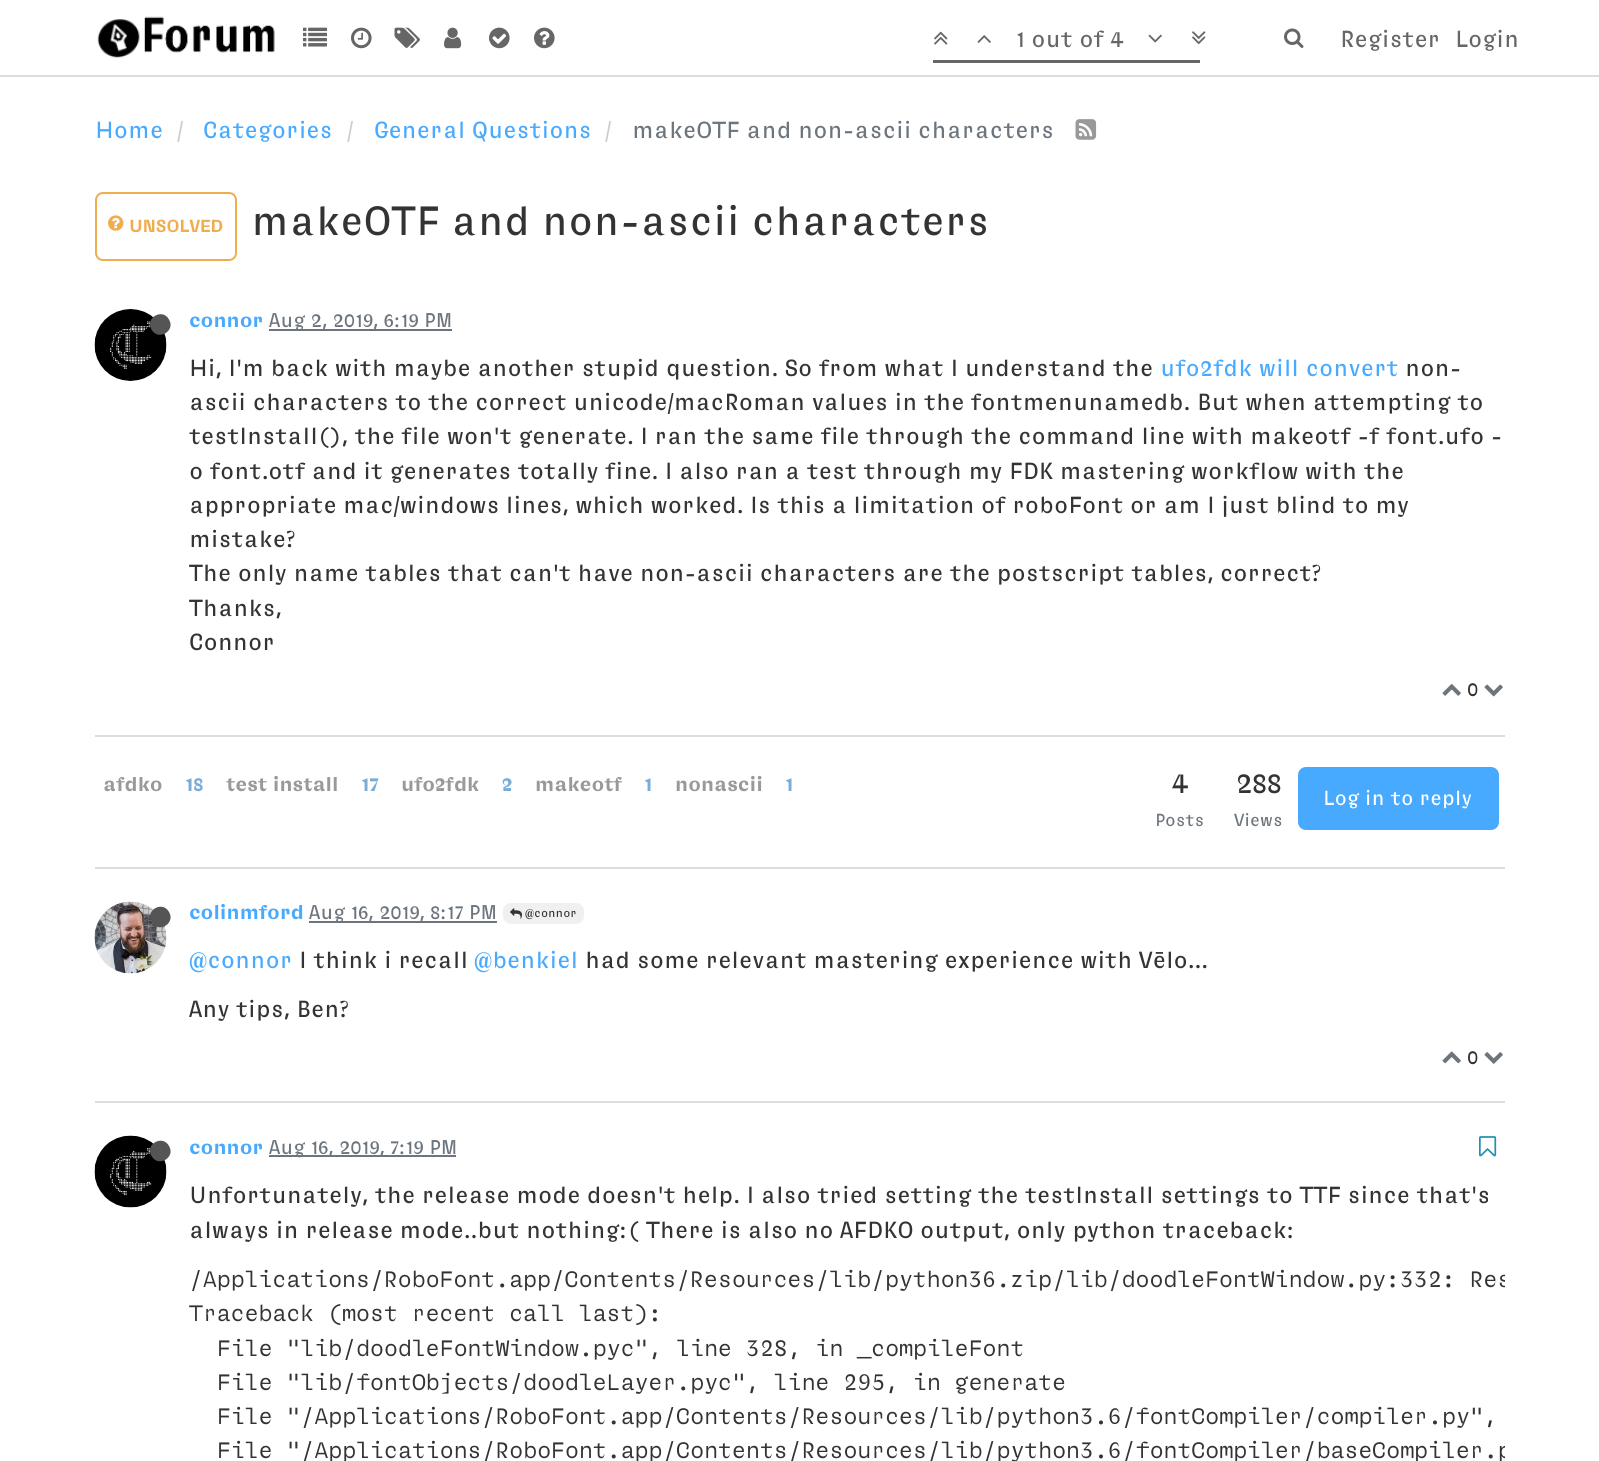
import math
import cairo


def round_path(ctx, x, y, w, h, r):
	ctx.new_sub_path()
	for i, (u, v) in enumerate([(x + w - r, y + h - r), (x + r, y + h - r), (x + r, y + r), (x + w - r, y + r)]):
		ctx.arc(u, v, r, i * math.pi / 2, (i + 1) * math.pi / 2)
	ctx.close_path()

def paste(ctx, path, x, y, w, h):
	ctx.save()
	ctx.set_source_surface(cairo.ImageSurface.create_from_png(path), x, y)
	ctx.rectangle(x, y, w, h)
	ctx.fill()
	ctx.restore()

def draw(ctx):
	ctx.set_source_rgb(1, 1, 1)
	ctx.paint()
	ctx.set_source_rgb(0.867, 0.867, 0.867)
	ctx.rectangle(0, 75, 1599, 2)
	ctx.fill()
	paste(ctx, 'media/1.png', 97, 16, 178, 43)
	paste(ctx, 'media/2.png', 303, 27, 24, 20)
	paste(ctx, 'media/3.png', 351, 27, 21, 22)
	paste(ctx, 'media/4.png', 394, 27, 26, 21)
	paste(ctx, 'media/5.png', 444, 27, 18, 22)
	paste(ctx, 'media/6.png', 489, 27, 21, 22)
	paste(ctx, 'media/7.png', 534, 27, 21, 22)
	paste(ctx, 'media/8.png', 934, 31, 14, 14)
	paste(ctx, 'media/9.png', 977, 35, 14, 8)
	ctx.select_font_face('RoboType')
	ctx.set_font_size(24)
	ctx.set_source_rgb(0.4, 0.4, 0.4)
	ctx.move_to(1016, 47)
	ctx.show_text('1 out of 4')
	paste(ctx, 'media/10.png', 1148, 34, 14, 9)
	paste(ctx, 'media/11.png', 1192, 31, 14, 14)
	ctx.rectangle(933, 60, 267, 3)
	ctx.fill()
	paste(ctx, 'media/12.png', 1284, 28, 20, 20)
	ctx.move_to(1340, 47)
	ctx.show_text('Register')
	ctx.move_to(1455, 47)
	ctx.show_text('Login')
	ctx.set_source_rgb(0.278, 0.667, 1)
	ctx.move_to(95, 138)
	ctx.show_text('Home')
	ctx.set_source_rgb(0.8, 0.8, 0.8)
	ctx.move_to(177, 138)
	ctx.show_text('/')
	ctx.set_source_rgb(0.278, 0.667, 1)
	ctx.move_to(203, 138)
	ctx.show_text('Categories')
	ctx.set_source_rgb(0.8, 0.8, 0.8)
	ctx.move_to(347, 138)
	ctx.show_text('/')
	ctx.set_source_rgb(0.278, 0.667, 1)
	ctx.move_to(374, 138)
	ctx.show_text('General Questions')
	ctx.set_source_rgb(0.8, 0.8, 0.8)
	ctx.move_to(605, 138)
	ctx.show_text('/')
	ctx.set_source_rgb(0.424, 0.459, 0.49)
	ctx.move_to(632, 138)
	ctx.show_text('makeOTF and non-ascii characters')
	paste(ctx, 'media/13.png', 1075, 119, 22, 21)
	round_path(ctx, 96, 193, 140, 67, 7)
	ctx.set_source_rgb(0.941, 0.678, 0.306)
	ctx.stroke()
	paste(ctx, 'media/14.png', 108, 215, 16, 16)
	ctx.select_font_face('RoboType', cairo.FONT_SLANT_NORMAL, cairo.FONT_WEIGHT_BOLD)
	ctx.set_font_size(18)
	ctx.move_to(129, 232)
	ctx.show_text('UNSOLVED')
	ctx.select_font_face('RoboType')
	ctx.set_font_size(42)
	ctx.set_source_rgb(0.2, 0.2, 0.2)
	ctx.move_to(251, 235)
	ctx.show_text('makeOTF and non-ascii characters')
	paste(ctx, 'media/15.png', 94, 309, 73, 72)
	ctx.set_source_rgb(0.333, 0.333, 0.333)
	ctx.new_path()
	ctx.move_to(169, 319.5)
	ctx.curve_to(176, 331, 158, 341.5, 151.5, 329.5)
	ctx.curve_to(144.5, 318, 162.5, 307.5, 169, 319.5)
	ctx.close_path()
	ctx.fill()
	ctx.select_font_face('RoboType', cairo.FONT_SLANT_NORMAL, cairo.FONT_WEIGHT_BOLD)
	ctx.set_font_size(20.5)
	ctx.set_source_rgb(0.278, 0.667, 1)
	ctx.move_to(189, 327)
	ctx.show_text('connor')
	ctx.set_source_rgb(0.424, 0.459, 0.49)
	ctx.rectangle(269, 329, 183, 2)
	ctx.fill()
	ctx.select_font_face('RoboType')
	ctx.move_to(269, 327)
	ctx.show_text('Aug 2, 2019, 6:19 PM')
	ctx.set_font_size(24)
	ctx.set_source_rgb(0.2, 0.2, 0.2)
	ctx.move_to(189, 376)
	ctx.show_text('Hi, I\'m back with maybe another stupid question. So from what I understand the')
	ctx.set_source_rgb(0.278, 0.667, 1)
	ctx.move_to(1160, 376)
	ctx.show_text('ufo2fdk will convert')
	ctx.set_source_rgb(0.2, 0.2, 0.2)
	for x, y, s in [
		(1405, 376, 'non-'),
		(189, 410, 'ascii characters to the correct unicode/macRoman values in the fontmenunamedb. But when attempting to'),
		(189, 444, 'testInstall(), the file won\'t generate. I ran the same file through the command line with makeotf -f font.ufo -'),
		(189, 479, 'o font.otf and it generates totally fine. I also ran a test through my FDK mastering workflow with the'),
		(189, 513, 'appropriate mac/windows lines, which worked. Is this a limitation of roboFont or am I just blind to my'),
		(189, 547, 'mistake?'),
		(189, 581, 'The only name tables that can\'t have non-ascii characters are the postscript tables, correct?'),
		(189, 616, 'Thanks,'),
		(189, 650, 'Connor'),
	]:
		ctx.move_to(x, y)
		ctx.show_text(s)
	paste(ctx, 'media/16.png', 1442, 684, 19, 12)
	ctx.set_font_size(20.5)
	ctx.move_to(1467, 696)
	ctx.show_text('0')
	paste(ctx, 'media/17.png', 1484, 684, 19, 13)
	ctx.set_source_rgb(0.867, 0.867, 0.867)
	ctx.rectangle(95, 735, 1410, 2)
	ctx.fill()
	ctx.select_font_face('RoboType', cairo.FONT_SLANT_NORMAL, cairo.FONT_WEIGHT_BOLD)
	ctx.set_source_rgb(0.6, 0.6, 0.6)
	ctx.move_to(103, 791)
	ctx.show_text('afdko')
	ctx.set_source_rgb(0.471, 0.675, 0.851)
	ctx.move_to(185, 791)
	ctx.show_text('18')
	ctx.set_source_rgb(0.6, 0.6, 0.6)
	ctx.move_to(226, 791)
	ctx.show_text('test install')
	ctx.set_source_rgb(0.471, 0.675, 0.851)
	ctx.move_to(361, 791)
	ctx.show_text('17')
	ctx.set_source_rgb(0.6, 0.6, 0.6)
	ctx.move_to(401, 791)
	ctx.show_text('ufo2fdk')
	ctx.set_source_rgb(0.471, 0.675, 0.851)
	ctx.move_to(502, 791)
	ctx.show_text('2')
	ctx.set_source_rgb(0.6, 0.6, 0.6)
	ctx.move_to(535, 791)
	ctx.show_text('makeotf')
	ctx.set_source_rgb(0.471, 0.675, 0.851)
	ctx.move_to(644, 791)
	ctx.show_text('1')
	ctx.set_source_rgb(0.6, 0.6, 0.6)
	ctx.move_to(675, 791)
	ctx.show_text('nonascii')
	ctx.set_source_rgb(0.471, 0.675, 0.851)
	ctx.move_to(785, 791)
	ctx.show_text('1')
	ctx.select_font_face('RoboType')
	ctx.set_font_size(30)
	ctx.set_source_rgb(0.2, 0.2, 0.2)
	ctx.move_to(1172, 793)
	ctx.show_text('4')
	ctx.set_font_size(18)
	ctx.set_source_rgb(0.424, 0.459, 0.49)
	ctx.move_to(1155, 826)
	ctx.show_text('Posts')
	ctx.set_font_size(30)
	ctx.set_source_rgb(0.2, 0.2, 0.2)
	ctx.move_to(1236, 793)
	ctx.show_text('288')
	ctx.set_font_size(18)
	ctx.set_source_rgb(0.424, 0.459, 0.49)
	ctx.move_to(1234, 826)
	ctx.show_text('Views')
	ctx.set_source_rgb(0.278, 0.667, 1)
	round_path(ctx, 1299, 768, 199, 61, 7)
	ctx.fill_preserve()
	ctx.set_source_rgb(0.282, 0.663, 1)
	ctx.stroke()
	ctx.set_font_size(21)
	ctx.set_source_rgb(1, 1, 1)
	ctx.move_to(1323, 805)
	ctx.show_text('Log in to reply')
	ctx.set_source_rgb(0.867, 0.867, 0.867)
	ctx.rectangle(95, 867, 1410, 2)
	ctx.fill()
	paste(ctx, 'media/18.png', 94, 901, 73, 73)
	ctx.set_source_rgb(0.333, 0.333, 0.333)
	ctx.new_path()
	ctx.move_to(169, 912)
	ctx.curve_to(176, 923.5, 158, 934, 151.5, 922)
	ctx.curve_to(144.5, 910.5, 162.5, 900, 169, 912)
	ctx.close_path()
	ctx.fill()
	ctx.select_font_face('RoboType', cairo.FONT_SLANT_NORMAL, cairo.FONT_WEIGHT_BOLD)
	ctx.set_font_size(20.5)
	ctx.set_source_rgb(0.278, 0.667, 1)
	ctx.move_to(189, 919)
	ctx.show_text('colinmford')
	ctx.set_source_rgb(0.424, 0.459, 0.49)
	ctx.rectangle(309, 921, 188, 2)
	ctx.fill()
	ctx.select_font_face('RoboType')
	ctx.move_to(309, 919)
	ctx.show_text('Aug 16, 2019, 8:17 PM')
	ctx.set_source_rgb(0.941, 0.941, 0.941)
	round_path(ctx, 503, 903, 81, 21, 8)
	ctx.fill()
	paste(ctx, 'media/19.png', 510, 908, 12, 11)
	ctx.set_font_size(12)
	ctx.set_source_rgb(0.2, 0.2, 0.2)
	ctx.move_to(525, 917)
	ctx.show_text('@connor')
	ctx.set_font_size(24)
	ctx.set_source_rgb(0.278, 0.667, 1)
	ctx.move_to(189, 968)
	ctx.show_text('@connor')
	ctx.set_source_rgb(0.2, 0.2, 0.2)
	ctx.move_to(299, 968)
	ctx.show_text('I think i recall')
	ctx.set_source_rgb(0.278, 0.667, 1)
	ctx.move_to(474, 968)
	ctx.show_text('@benkiel')
	ctx.set_source_rgb(0.2, 0.2, 0.2)
	ctx.move_to(585, 968)
	ctx.show_text('had some relevant mastering experience with Vēlo...')
	ctx.move_to(189, 1017)
	ctx.show_text('Any tips, Ben?')
	paste(ctx, 'media/20.png', 1442, 1051, 19, 13)
	ctx.set_font_size(20.5)
	ctx.move_to(1467, 1064)
	ctx.show_text('0')
	paste(ctx, 'media/21.png', 1484, 1052, 19, 12)
	ctx.set_source_rgb(0.867, 0.867, 0.867)
	ctx.rectangle(95, 1101, 1410, 2)
	ctx.fill()
	paste(ctx, 'media/22.png', 94, 1135, 73, 73)
	ctx.set_source_rgb(0.333, 0.333, 0.333)
	ctx.new_path()
	ctx.move_to(169, 1146)
	ctx.curve_to(176, 1157.5, 158, 1168, 151.5, 1156)
	ctx.curve_to(144.5, 1144.5, 162.5, 1134, 169, 1146)
	ctx.close_path()
	ctx.fill()
	ctx.select_font_face('RoboType', cairo.FONT_SLANT_NORMAL, cairo.FONT_WEIGHT_BOLD)
	ctx.set_source_rgb(0.278, 0.667, 1)
	ctx.move_to(189, 1154)
	ctx.show_text('connor')
	ctx.set_source_rgb(0.424, 0.459, 0.49)
	ctx.rectangle(269, 1155, 187, 2)
	ctx.fill()
	ctx.select_font_face('RoboType')
	ctx.move_to(269, 1154)
	ctx.show_text('Aug 16, 2019, 7:19 PM')
	paste(ctx, 'media/23.png', 1479, 1136, 18, 21)
	ctx.set_font_size(24)
	ctx.set_source_rgb(0.2, 0.2, 0.2)
	ctx.move_to(189, 1203)
	ctx.show_text('Unfortunately, the release mode doesn\'t help. I also tried setting the testInstall settings to TTF since that\'s')
	ctx.move_to(189, 1238)
	ctx.show_text('always in release mode..but nothing:( There is also no AFDKO output, only python traceback:')
	ctx.save()
	ctx.rectangle(189, 1262, 1316, 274)
	ctx.clip()
	ctx.select_font_face('RoboType Light')
	ctx.move_to(189, 1287)
	ctx.show_text('/Applications/RoboFont.app/Contents/Resources/lib/python36.zip/lib/doodleFontWindow.py:332: Res')
	ctx.restore()
	ctx.select_font_face('RoboType Light')
	for x, y, s in [
		(189, 1321, 'Traceback (most recent call last):'),
		(217, 1356, 'File "lib/doodleFontWindow.pyc", line 328, in _compileFont'),
		(217, 1390, 'File "lib/fontObjects/doodleLayer.pyc", line 295, in generate'),
		(217, 1424, 'File "/Applications/RoboFont.app/Contents/Resources/lib/python3.6/fontCompiler/compiler.py",'),
	]:
		ctx.move_to(x, y)
		ctx.show_text(s)
	ctx.save()
	ctx.rectangle(189, 1262, 1316, 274)
	ctx.clip()
	ctx.move_to(217, 1458)
	ctx.show_text('File "/Applications/RoboFont.app/Contents/Resources/lib/python3.6/fontCompiler/baseCompiler.p')
	ctx.restore()


surface = cairo.ImageSurface(cairo.FORMAT_RGB24, 1599, 1461)
ctx = cairo.Context(surface)
options = cairo.FontOptions()
options.set_hint_metrics(cairo.HINT_METRICS_OFF)
options.set_hint_style(cairo.HINT_STYLE_NONE)
ctx.set_font_options(options)
ctx.set_miter_limit(4)
draw(ctx)
surface.write_to_png('image.png')
